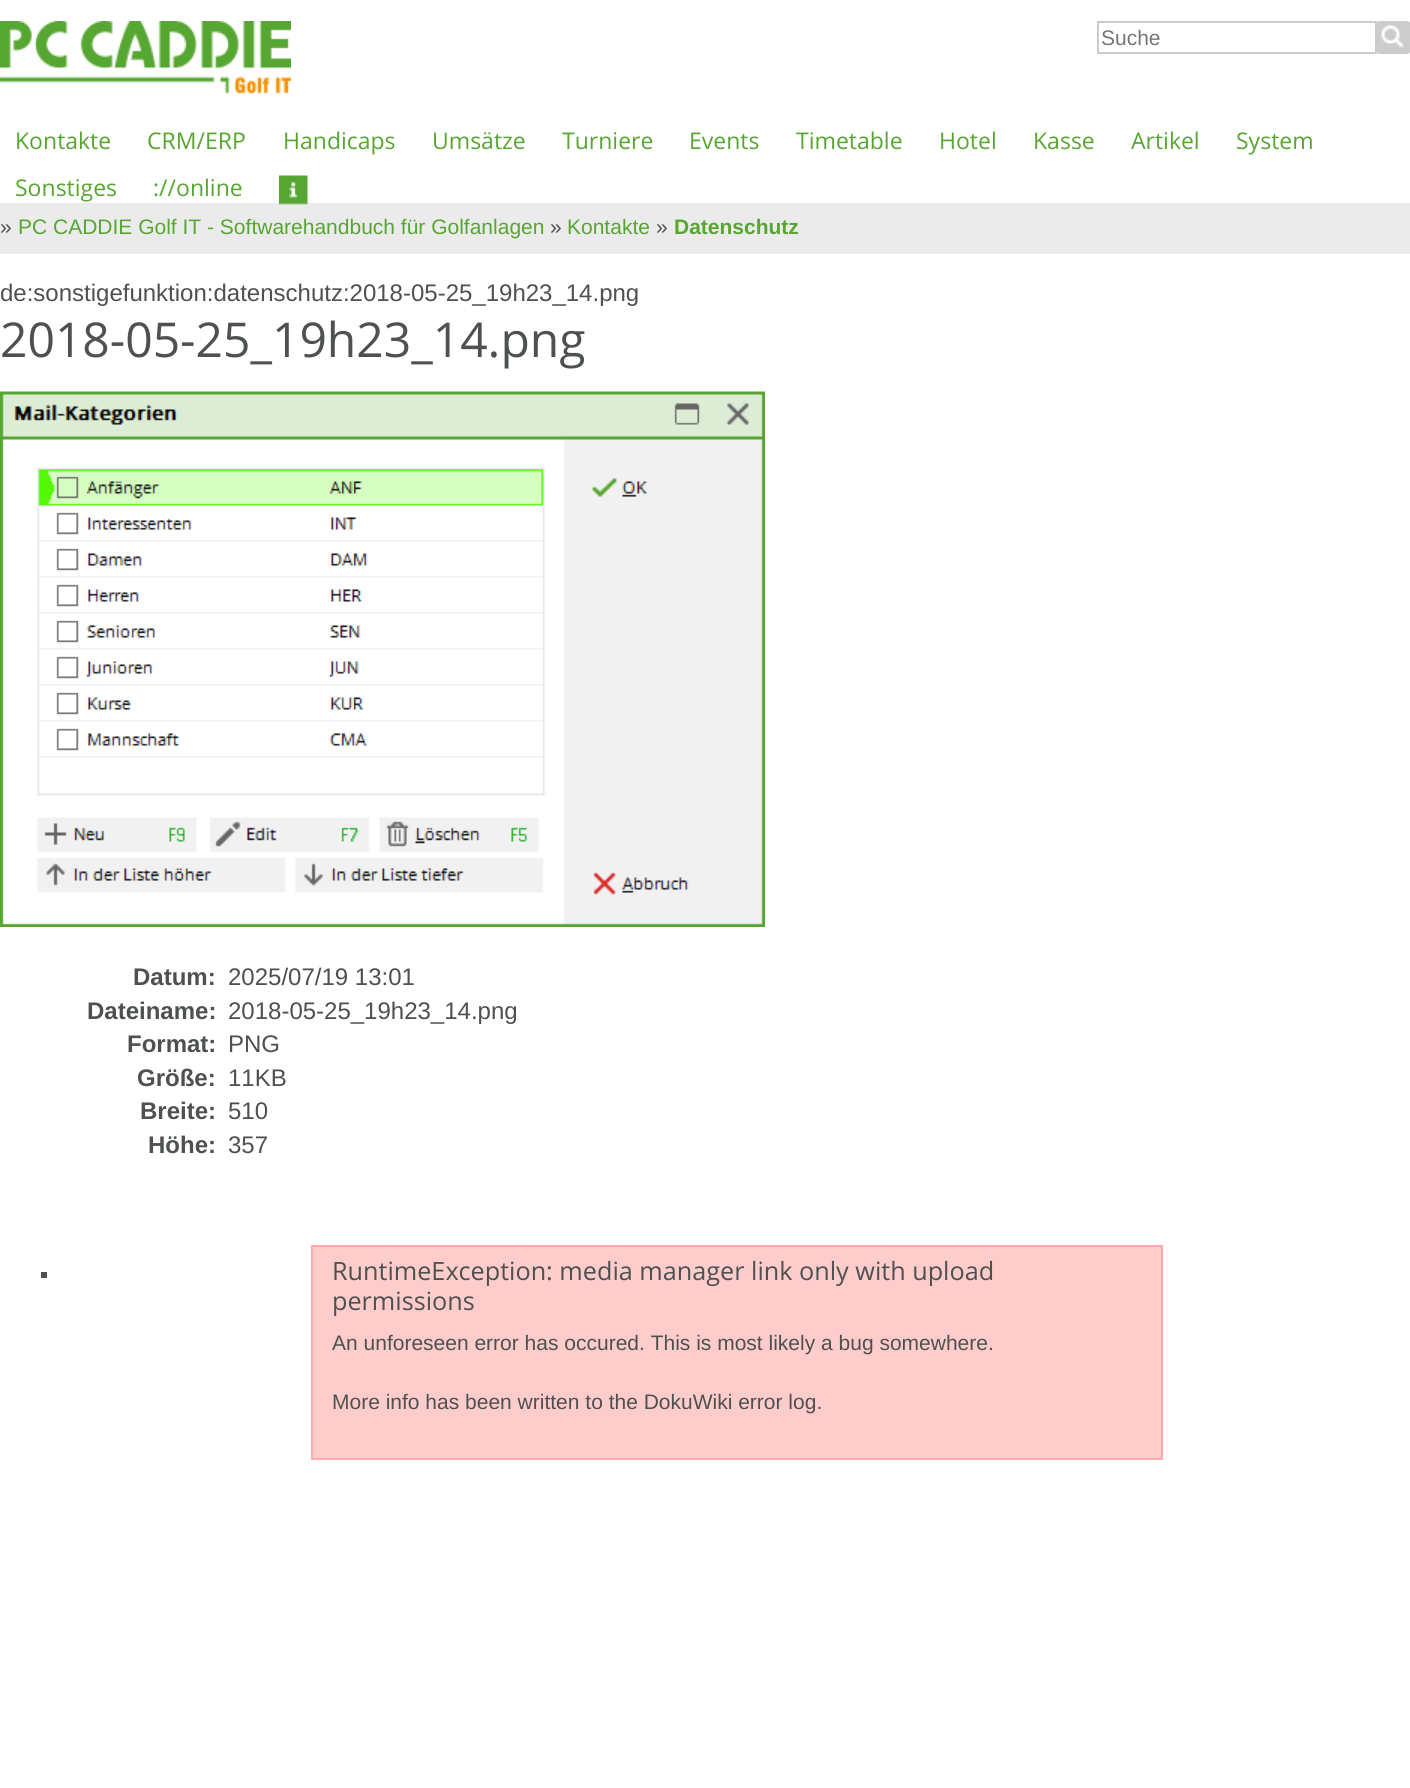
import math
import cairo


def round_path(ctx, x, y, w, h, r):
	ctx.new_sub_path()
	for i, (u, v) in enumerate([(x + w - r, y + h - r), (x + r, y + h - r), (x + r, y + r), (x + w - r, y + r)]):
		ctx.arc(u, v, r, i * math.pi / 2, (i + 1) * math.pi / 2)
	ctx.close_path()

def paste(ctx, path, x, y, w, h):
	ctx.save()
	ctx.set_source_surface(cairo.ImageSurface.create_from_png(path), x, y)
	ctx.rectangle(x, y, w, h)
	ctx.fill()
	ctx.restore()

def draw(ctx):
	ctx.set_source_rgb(1, 1, 1)
	ctx.paint()
	paste(ctx, 'media/1.png', 0, 21, 291, 73)
	ctx.rectangle(1098, 22, 278, 31)
	ctx.set_source_rgb(0.8, 0.8, 0.8)
	ctx.stroke()
	ctx.select_font_face('Liberation Sans')
	ctx.set_font_size(21)
	ctx.set_source_rgb(0.459, 0.459, 0.459)
	ctx.move_to(1101, 45)
	ctx.show_text('Suche')
	ctx.set_source_rgb(0.8, 0.8, 0.8)
	round_path(ctx, 1377, 21, 33, 33, 3)
	ctx.fill()
	paste(ctx, 'media/2.png', 1381, 25, 23, 23)
	round_path(ctx, 1378, 22, 31, 31, 2)
	ctx.stroke()
	ctx.select_font_face('Open Sans')
	ctx.set_font_size(23)
	ctx.set_source_rgb(0.341, 0.651, 0.196)
	for x, y, s in [
		(15, 149, 'Kontakte'),
		(147, 149, 'CRM/ERP'),
		(283, 149, 'Handicaps'),
		(432, 149, 'Umsätze'),
		(562, 149, 'Turniere'),
		(689, 149, 'Events'),
		(796, 149, 'Timetable'),
		(939, 149, 'Hotel'),
		(1033, 149, 'Kasse'),
		(1131, 149, 'Artikel'),
		(1236, 149, 'System'),
		(15, 196, 'Sonstiges'),
		(153, 196, '://online'),
	]:
		ctx.move_to(x, y)
		ctx.show_text(s)
	ctx.set_source_rgb(0.918, 0.918, 0.918)
	ctx.rectangle(0, 203, 1410, 51)
	ctx.fill()
	paste(ctx, 'media/3.png', 279, 175, 29, 30)
	ctx.select_font_face('Liberation Sans')
	ctx.set_font_size(21)
	ctx.set_source_rgb(0.302, 0.318, 0.31)
	ctx.move_to(0, 234)
	ctx.show_text('»')
	ctx.set_source_rgb(0.341, 0.651, 0.196)
	ctx.move_to(18, 234)
	ctx.show_text('PC CADDIE Golf IT - Softwarehandbuch für Golfanlagen')
	ctx.set_source_rgb(0.302, 0.318, 0.31)
	ctx.move_to(550, 234)
	ctx.show_text('»')
	ctx.set_source_rgb(0.341, 0.651, 0.196)
	ctx.move_to(567, 234)
	ctx.show_text('Kontakte')
	ctx.set_source_rgb(0.302, 0.318, 0.31)
	ctx.move_to(656, 234)
	ctx.show_text('»')
	ctx.select_font_face('Liberation Sans', cairo.FONT_SLANT_NORMAL, cairo.FONT_WEIGHT_BOLD)
	ctx.set_source_rgb(0.341, 0.651, 0.196)
	ctx.move_to(674, 234)
	ctx.show_text('Datenschutz')
	ctx.select_font_face('Liberation Sans')
	ctx.set_font_size(24)
	ctx.set_source_rgb(0.302, 0.318, 0.31)
	ctx.move_to(0, 301)
	ctx.show_text('de:sonstigefunktion:datenschutz:2018-05-25_19h23_14.png')
	ctx.select_font_face('Open Sans')
	ctx.set_font_size(48)
	ctx.move_to(0, 357)
	ctx.show_text('2018-05-25_19h23_14.png')
	paste(ctx, 'media/4.png', 0, 391, 765, 536)
	ctx.select_font_face('Liberation Sans', cairo.FONT_SLANT_NORMAL, cairo.FONT_WEIGHT_BOLD)
	ctx.set_font_size(24)
	ctx.move_to(133, 985)
	ctx.show_text('Datum:')
	ctx.select_font_face('Liberation Sans')
	ctx.move_to(228, 985)
	ctx.show_text('2025/07/19 13:01')
	ctx.select_font_face('Liberation Sans', cairo.FONT_SLANT_NORMAL, cairo.FONT_WEIGHT_BOLD)
	ctx.move_to(87, 1019)
	ctx.show_text('Dateiname:')
	ctx.select_font_face('Liberation Sans')
	ctx.move_to(228, 1019)
	ctx.show_text('2018-05-25_19h23_14.png')
	ctx.select_font_face('Liberation Sans', cairo.FONT_SLANT_NORMAL, cairo.FONT_WEIGHT_BOLD)
	ctx.move_to(127, 1052)
	ctx.show_text('Format:')
	ctx.select_font_face('Liberation Sans')
	ctx.move_to(228, 1052)
	ctx.show_text('PNG')
	ctx.select_font_face('Liberation Sans', cairo.FONT_SLANT_NORMAL, cairo.FONT_WEIGHT_BOLD)
	ctx.move_to(137, 1086)
	ctx.show_text('Größe:')
	ctx.select_font_face('Liberation Sans')
	ctx.move_to(228, 1086)
	ctx.show_text('11KB')
	ctx.select_font_face('Liberation Sans', cairo.FONT_SLANT_NORMAL, cairo.FONT_WEIGHT_BOLD)
	ctx.move_to(140, 1119)
	ctx.show_text('Breite:')
	ctx.select_font_face('Liberation Sans')
	ctx.move_to(228, 1119)
	ctx.show_text('510')
	ctx.select_font_face('Liberation Sans', cairo.FONT_SLANT_NORMAL, cairo.FONT_WEIGHT_BOLD)
	ctx.move_to(148, 1153)
	ctx.show_text('Höhe:')
	ctx.select_font_face('Liberation Sans')
	ctx.move_to(228, 1153)
	ctx.show_text('357')
	ctx.rectangle(41, 1272, 6, 6)
	ctx.fill()
	ctx.set_source_rgb(1, 0.8, 0.8)
	ctx.rectangle(312, 1246, 850, 213)
	ctx.fill_preserve()
	ctx.set_source_rgb(1, 0.667, 0.667)
	ctx.stroke()
	ctx.select_font_face('Open Sans')
	ctx.set_font_size(25.2)
	ctx.set_source_rgb(0.302, 0.318, 0.31)
	ctx.move_to(332, 1280)
	ctx.show_text('RuntimeException: media manager link only with upload')
	ctx.move_to(332, 1310)
	ctx.show_text('permissions')
	ctx.select_font_face('Liberation Sans')
	ctx.set_font_size(21)
	ctx.move_to(332, 1350)
	ctx.show_text('An unforeseen error has occured. This is most likely a bug somewhere.')
	ctx.move_to(332, 1409)
	ctx.show_text('More info has been written to the DokuWiki error log.')


surface = cairo.ImageSurface(cairo.FORMAT_RGB24, 1410, 1788)
ctx = cairo.Context(surface)
options = cairo.FontOptions()
options.set_hint_metrics(cairo.HINT_METRICS_OFF)
options.set_hint_style(cairo.HINT_STYLE_NONE)
ctx.set_font_options(options)
ctx.set_miter_limit(4)
draw(ctx)
surface.write_to_png('image.png')
